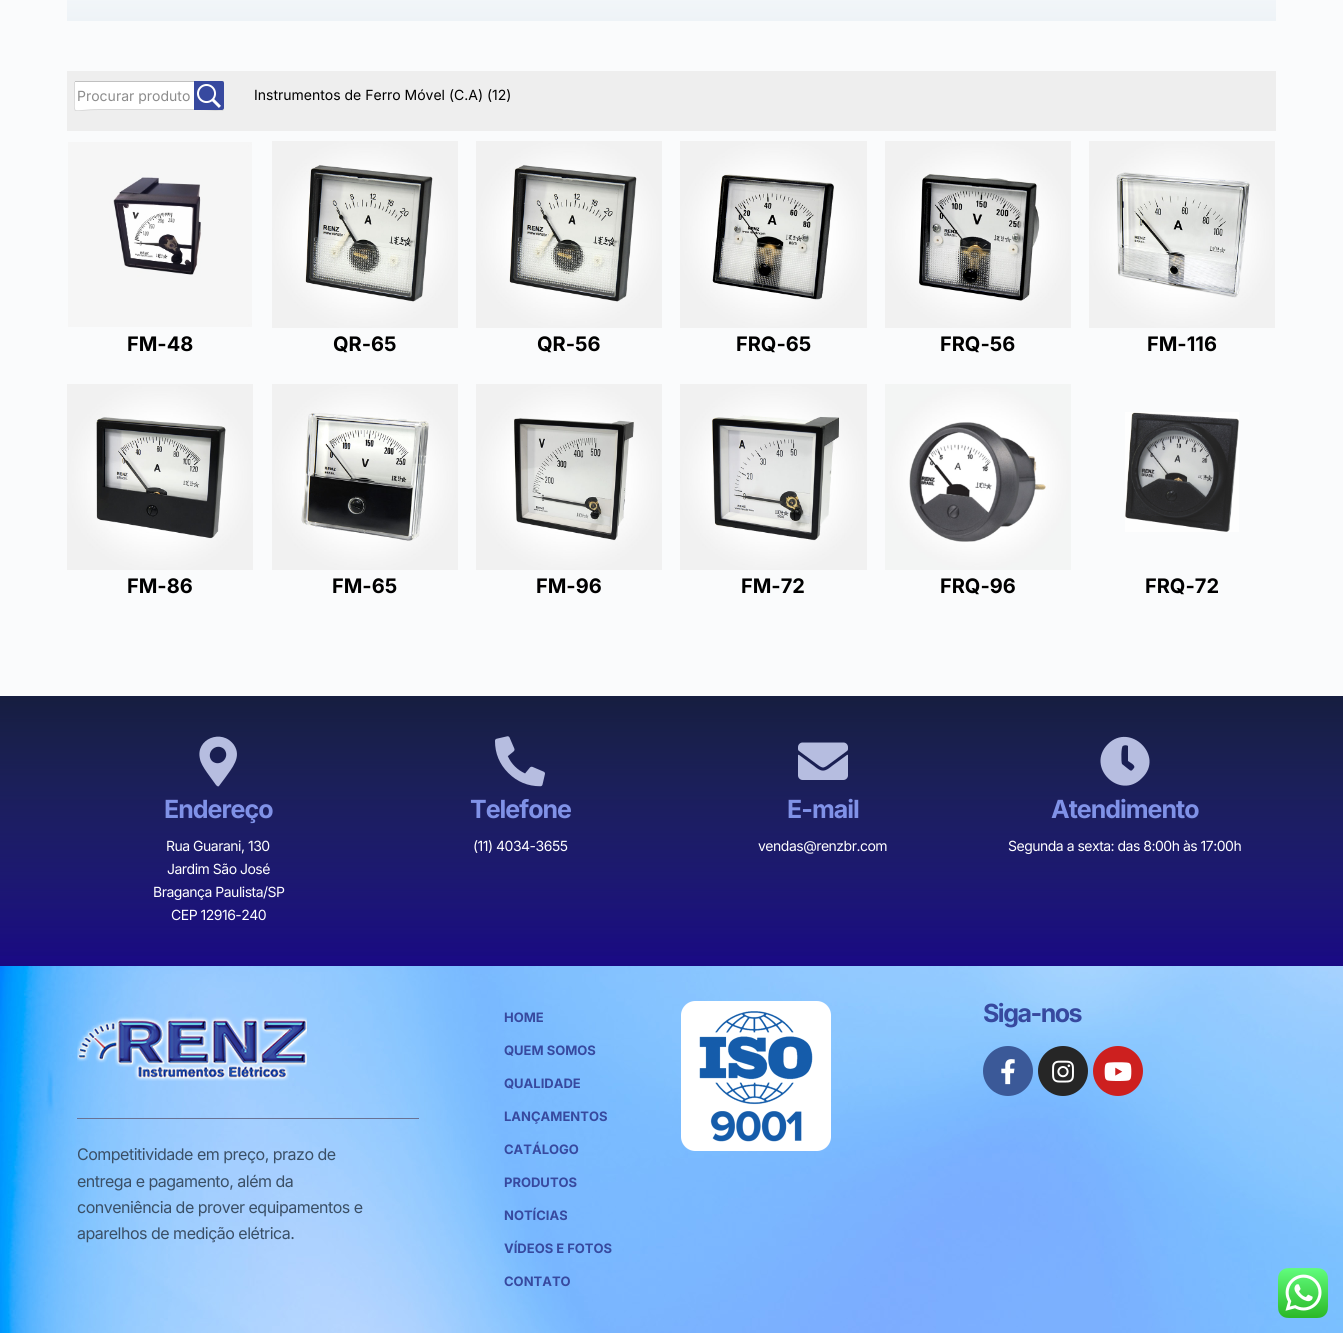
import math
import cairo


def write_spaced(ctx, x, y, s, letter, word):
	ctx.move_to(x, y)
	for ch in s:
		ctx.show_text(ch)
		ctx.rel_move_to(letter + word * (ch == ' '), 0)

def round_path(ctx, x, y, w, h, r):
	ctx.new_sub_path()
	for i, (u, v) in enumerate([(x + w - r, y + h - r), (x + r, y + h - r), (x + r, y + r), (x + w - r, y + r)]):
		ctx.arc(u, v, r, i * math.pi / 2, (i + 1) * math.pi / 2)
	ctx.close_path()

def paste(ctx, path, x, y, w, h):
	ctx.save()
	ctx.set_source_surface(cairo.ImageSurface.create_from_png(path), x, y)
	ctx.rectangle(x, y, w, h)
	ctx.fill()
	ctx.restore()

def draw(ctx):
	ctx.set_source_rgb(0.98, 0.984, 0.988)
	ctx.paint()
	gradient = cairo.LinearGradient(672, -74, 672, 21)
	gradient.add_color_stop_rgba(0, 1, 1, 1, 1)
	gradient.add_color_stop_rgba(1, 0.933, 0.953, 0.969, 1)
	ctx.set_source(gradient)
	ctx.rectangle(67, 0, 1209, 21)
	ctx.fill()
	ctx.set_source_rgb(0.933, 0.933, 0.933)
	ctx.rectangle(67, 71, 1209, 60)
	ctx.fill()
	ctx.set_source_rgb(1, 1, 1)
	round_path(ctx, 74, 81, 150, 29, 1)
	ctx.fill()
	ctx.set_source_rgb(0.753, 0.753, 0.753)
	ctx.rectangle(75, 81, 149, 1)
	ctx.fill()
	ctx.save()
	ctx.rectangle(74, 81, 150, 30)
	ctx.clip()
	ctx.new_path()
	ctx.move_to(223.5, 81.5)
	ctx.line_to(223.5, 95.5)
	ctx.curve_to(223.5, 117.5, 227.5, 109.5, 198.5, 109.5)
	ctx.line_to(99.5, 109.5)
	ctx.curve_to(70.5, 109.5, 74.5, 117.5, 74.5, 95.5)
	ctx.line_to(74.5, 81.5)
	ctx.set_source_rgb(0.851, 0.851, 0.851)
	ctx.set_line_width(1)
	ctx.stroke()
	ctx.restore()
	ctx.select_font_face('Inter')
	ctx.set_font_size(14)
	ctx.set_source_rgb(0.549, 0.549, 0.549)
	ctx.move_to(77, 101)
	ctx.show_text('Procurar produto')
	ctx.set_source_rgb(0.216, 0.286, 0.624)
	ctx.new_path()
	ctx.move_to(194, 81)
	ctx.line_to(222, 81)
	ctx.curve_to(223, 81, 224, 82, 224, 83)
	ctx.line_to(224, 108)
	ctx.curve_to(224, 109, 223, 110, 222, 110)
	ctx.line_to(194, 110)
	ctx.close_path()
	ctx.fill()
	paste(ctx, 'media/1.png', 197, 84, 24, 24)
	ctx.set_source_rgb(0, 0, 0)
	ctx.move_to(254, 100)
	ctx.show_text('Instrumentos de Ferro Móvel (C.A) (12)')
	paste(ctx, 'media/2.png', 68, 142, 184, 185)
	ctx.select_font_face('Inter', cairo.FONT_SLANT_NORMAL, cairo.FONT_WEIGHT_BOLD)
	ctx.set_font_size(20)
	ctx.move_to(127, 351)
	ctx.show_text('FM-48')
	paste(ctx, 'media/3.png', 272, 141, 186, 187)
	ctx.move_to(333, 351)
	ctx.show_text('QR-65')
	paste(ctx, 'media/4.png', 476, 141, 186, 187)
	ctx.move_to(537, 351)
	ctx.show_text('QR-56')
	paste(ctx, 'media/5.png', 680, 141, 187, 187)
	ctx.move_to(736, 351)
	ctx.show_text('FRQ-65')
	paste(ctx, 'media/6.png', 885, 141, 186, 187)
	ctx.move_to(940, 351)
	ctx.show_text('FRQ-56')
	paste(ctx, 'media/7.png', 1089, 141, 186, 187)
	ctx.move_to(1147, 351)
	ctx.show_text('FM-116')
	paste(ctx, 'media/8.png', 67, 384, 186, 186)
	ctx.move_to(127, 593)
	ctx.show_text('FM-86')
	paste(ctx, 'media/9.png', 272, 384, 186, 186)
	ctx.move_to(332, 593)
	ctx.show_text('FM-65')
	paste(ctx, 'media/10.png', 476, 384, 186, 186)
	ctx.move_to(536, 593)
	ctx.show_text('FM-96')
	paste(ctx, 'media/11.png', 680, 384, 187, 186)
	ctx.move_to(741, 593)
	ctx.show_text('FM-72')
	paste(ctx, 'media/12.png', 885, 384, 186, 186)
	ctx.move_to(940, 593)
	ctx.show_text('FRQ-96')
	paste(ctx, 'media/13.png', 1125, 412, 114, 120)
	ctx.move_to(1145, 593)
	ctx.show_text('FRQ-72')
	gradient = cairo.LinearGradient(672, 696, 672, 966)
	gradient.add_color_stop_rgba(0, 0.216, 0.286, 0.624, 1)
	gradient.add_color_stop_rgba(1, 0.098, 0.035, 0.514, 1)
	ctx.set_source(gradient)
	ctx.rectangle(0, 696, 1343, 270)
	ctx.fill()
	gradient = cairo.LinearGradient(672, 966, 672, 696)
	gradient.add_color_stop_rgba(0, 0, 0, 0, 0)
	gradient.add_color_stop_rgba(1, 0, 0, 0, 0.6)
	ctx.set_source(gradient)
	ctx.rectangle(0, 696, 1343, 260)
	ctx.fill()
	ctx.set_source_rgb(0.714, 0.741, 0.878)
	ctx.new_path()
	ctx.move_to(216, 785)
	ctx.curve_to(212, 779, 201, 766, 200, 759)
	ctx.curve_to(195, 739, 222, 728, 234, 745)
	ctx.curve_to(242, 757, 232, 768, 225, 778)
	ctx.line_to(219, 786)
	ctx.curve_to(218, 787, 217, 786, 216, 785)
	ctx.close_path()
	ctx.move_to(212, 761)
	ctx.curve_to(220, 768, 231, 757, 224, 749)
	ctx.curve_to(216, 742, 205, 753, 212, 761)
	ctx.close_path()
	ctx.fill()
	ctx.set_font_size(25)
	ctx.set_source_rgb(0.502, 0.573, 0.906)
	write_spaced(ctx, 164, 818, 'Endereço', -1, 0)
	ctx.select_font_face('Inter')
	ctx.set_font_size(14)
	ctx.set_source_rgb(1, 1, 1)
	for x, y, s in [
		(166, 851, 'Rua Guarani, 130'),
		(167, 874, 'Jardim São José'),
		(153, 897, 'Bragança Paulista/SP'),
		(171, 920, 'CEP 12916-240'),
	]:
		write_spaced(ctx, x, y, s, -0.5, 0)
	paste(ctx, 'media/14.png', 495, 736, 50, 51)
	ctx.select_font_face('Inter', cairo.FONT_SLANT_NORMAL, cairo.FONT_WEIGHT_BOLD)
	ctx.set_font_size(25)
	ctx.set_source_rgb(0.502, 0.573, 0.906)
	write_spaced(ctx, 470, 818, 'Telefone', -1, 0)
	ctx.select_font_face('Inter')
	ctx.set_font_size(14)
	ctx.set_source_rgb(1, 1, 1)
	write_spaced(ctx, 473, 851, '(11) 4034-3655', -0.5, 0)
	paste(ctx, 'media/15.png', 798, 742, 50, 38)
	ctx.select_font_face('Inter', cairo.FONT_SLANT_NORMAL, cairo.FONT_WEIGHT_BOLD)
	ctx.set_font_size(25)
	ctx.set_source_rgb(0.502, 0.573, 0.906)
	write_spaced(ctx, 787, 818, 'E-mail', -1, 0)
	ctx.select_font_face('Inter')
	ctx.set_font_size(14)
	ctx.set_source_rgb(1, 1, 1)
	write_spaced(ctx, 758, 851, 'vendas@renzbr.com', -0.5, 0)
	ctx.set_source_rgb(0.714, 0.741, 0.878)
	ctx.new_path()
	ctx.move_to(1108, 744)
	ctx.curve_to(1130, 722, 1165, 756, 1142, 778)
	ctx.curve_to(1120, 801, 1085, 767, 1108, 744)
	ctx.close_path()
	ctx.move_to(1134, 768)
	ctx.curve_to(1136, 765, 1129, 762, 1128, 761)
	ctx.line_to(1128, 746)
	ctx.curve_to(1127, 745, 1124, 745, 1123, 746)
	ctx.curve_to(1121, 746, 1121, 762, 1122, 764)
	ctx.line_to(1127, 768)
	ctx.curve_to(1131, 771, 1131, 772, 1134, 768)
	ctx.close_path()
	ctx.fill()
	ctx.select_font_face('Inter', cairo.FONT_SLANT_NORMAL, cairo.FONT_WEIGHT_BOLD)
	ctx.set_font_size(25)
	ctx.set_source_rgb(0.502, 0.573, 0.906)
	write_spaced(ctx, 1051, 818, 'Atendimento', -1, 0)
	ctx.select_font_face('Inter')
	ctx.set_font_size(14)
	ctx.set_source_rgb(1, 1, 1)
	write_spaced(ctx, 1008, 851, 'Segunda a sexta: das 8:00h às 17:00h', -0.5, 0)
	paste(ctx, 'media/16.png', 0, 966, 1343, 367)
	paste(ctx, 'media/17.png', 77, 1016, 230, 65)
	ctx.set_source_rgb(0.408, 0.447, 0.58)
	ctx.rectangle(77, 1118, 342, 1)
	ctx.fill()
	ctx.set_font_size(16)
	ctx.set_source_rgb(0.227, 0.31, 0.4)
	for x, y, s in [
		(77, 1160, 'Competitividade em preço, prazo de'),
		(77, 1187, 'entrega e pagamento, além da'),
		(77, 1213, 'conveniência de prover equipamentos e'),
		(77, 1239, 'aparelhos de medição elétrica.'),
	]:
		write_spaced(ctx, x, y, s, -0.5, 0)
	ctx.select_font_face('Inter', cairo.FONT_SLANT_NORMAL, cairo.FONT_WEIGHT_BOLD)
	ctx.set_font_size(13)
	ctx.set_source_rgb(0.216, 0.286, 0.624)
	for x, y, s in [
		(504, 1022, 'HOME'),
		(504, 1055, 'QUEM SOMOS'),
		(504, 1088, 'QUALIDADE'),
		(504, 1121, 'LANÇAMENTOS'),
		(504, 1154, 'CATÁLOGO'),
		(504, 1187, 'PRODUTOS'),
		(504, 1220, 'NOTÍCIAS'),
		(504, 1253, 'VÍDEOS E FOTOS'),
		(504, 1286, 'CONTATO'),
	]:
		ctx.move_to(x, y)
		ctx.show_text(s)
	paste(ctx, 'media/18.png', 681, 1001, 150, 150)
	ctx.set_font_size(25)
	write_spaced(ctx, 983, 1022, 'Siga-nos', -1.5, 0)
	ctx.set_source_rgb(0.231, 0.349, 0.596)
	ctx.new_path()
	ctx.arc(1008, 1071, 25, 0, 2 * math.pi)
	ctx.fill()
	paste(ctx, 'media/19.png', 1001, 1059, 14, 26)
	ctx.set_source_rgb(0.149, 0.149, 0.149)
	ctx.arc(1063, 1071, 25, 0, 2 * math.pi)
	ctx.fill()
	paste(ctx, 'media/20.png', 1052, 1060, 22, 23)
	ctx.set_source_rgb(0.804, 0.125, 0.122)
	ctx.arc(1118, 1071, 25, 0, 2 * math.pi)
	ctx.fill()
	paste(ctx, 'media/21.png', 1104, 1062, 28, 19)
	paste(ctx, 'media/22.png', 1278, 1268, 50, 50)


surface = cairo.ImageSurface(cairo.FORMAT_RGB24, 1343, 1333)
ctx = cairo.Context(surface)
options = cairo.FontOptions()
options.set_hint_metrics(cairo.HINT_METRICS_OFF)
options.set_hint_style(cairo.HINT_STYLE_NONE)
ctx.set_font_options(options)
ctx.set_miter_limit(4)
draw(ctx)
surface.write_to_png('image.png')
